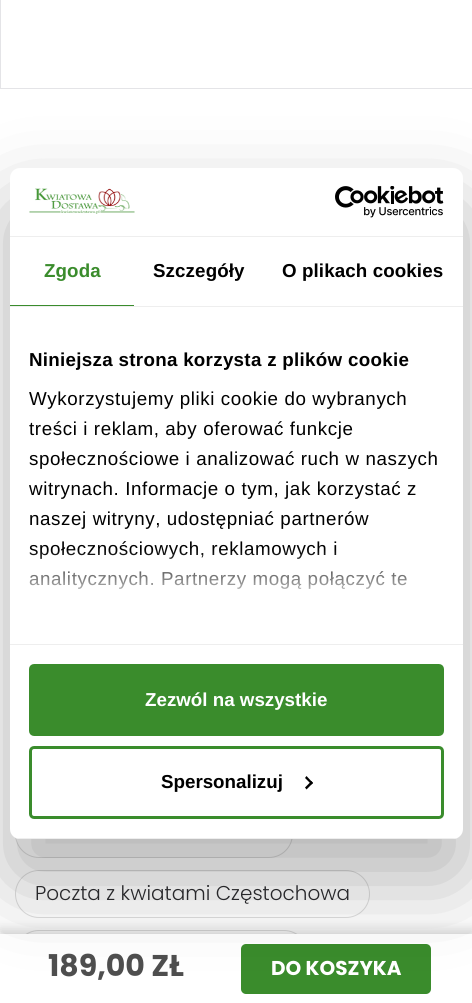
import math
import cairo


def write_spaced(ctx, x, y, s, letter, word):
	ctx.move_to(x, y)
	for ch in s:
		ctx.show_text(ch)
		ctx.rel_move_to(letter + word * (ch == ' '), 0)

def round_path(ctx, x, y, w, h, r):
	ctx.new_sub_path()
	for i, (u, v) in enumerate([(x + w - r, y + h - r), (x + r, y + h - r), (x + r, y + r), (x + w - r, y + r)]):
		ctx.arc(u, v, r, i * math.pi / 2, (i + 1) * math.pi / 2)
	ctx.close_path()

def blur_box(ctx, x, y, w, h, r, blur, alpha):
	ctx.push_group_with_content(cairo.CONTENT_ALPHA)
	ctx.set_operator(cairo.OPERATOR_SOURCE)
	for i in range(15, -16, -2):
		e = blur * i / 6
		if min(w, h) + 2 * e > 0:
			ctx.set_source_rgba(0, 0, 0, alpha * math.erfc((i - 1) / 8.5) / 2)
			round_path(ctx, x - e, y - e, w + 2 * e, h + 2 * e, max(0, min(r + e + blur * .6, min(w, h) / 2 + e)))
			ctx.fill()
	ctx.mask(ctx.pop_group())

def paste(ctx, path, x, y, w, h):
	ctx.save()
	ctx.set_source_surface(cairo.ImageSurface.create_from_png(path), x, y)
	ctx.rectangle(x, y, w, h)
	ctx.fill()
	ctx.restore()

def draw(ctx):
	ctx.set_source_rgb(1, 1, 1)
	ctx.paint()
	ctx.rectangle(0.5, -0.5, 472, 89)
	ctx.set_source_rgb(0.894, 0.894, 0.906)
	ctx.set_line_width(1)
	ctx.stroke()
	round_path(ctx, 15.5, 810.5, 277, 47, 23.5)
	ctx.set_source_rgb(0.867, 0.867, 0.867)
	ctx.stroke()
	round_path(ctx, 15.5, 870.5, 354, 47, 23.5)
	ctx.stroke()
	round_path(ctx, 15.5, 930.5, 292, 47, 23.5)
	ctx.stroke()
	ctx.set_source_rgb(0, 0, 0)
	blur_box(ctx, 0, 929, 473, 70, 0, 5, 0.15)
	ctx.set_source_rgb(1, 1, 1)
	ctx.rectangle(0, 934, 472, 69)
	ctx.fill()
	ctx.set_source_rgb(0.227, 0.549, 0.173)
	round_path(ctx, 241, 944, 190, 50, 5)
	ctx.fill()
	ctx.set_source_rgb(0, 0, 0)
	blur_box(ctx, 10, 208, 453, 671, 10, 42.5, 0.3)
	ctx.set_source_rgb(1, 1, 1)
	round_path(ctx, 10, 168, 453, 671, 10)
	ctx.fill()
	ctx.set_source_rgb(0.933, 0.933, 0.933)
	ctx.rectangle(10, 236, 453, 1)
	ctx.fill()
	paste(ctx, 'media/1.png', 29, 188, 106, 26)
	paste(ctx, 'media/2.png', 335, 186, 109, 32)
	ctx.rectangle(10, 306, 453, 1)
	ctx.fill()
	ctx.set_source_rgb(0.227, 0.549, 0.173)
	ctx.rectangle(10, 305, 124, 1)
	ctx.fill()
	ctx.select_font_face('Liberation Sans', cairo.FONT_SLANT_NORMAL, cairo.FONT_WEIGHT_BOLD)
	ctx.set_font_size(18.75)
	write_spaced(ctx, 44, 277, 'Zgoda', 0.1, 0)
	ctx.set_source_rgb(0, 0, 0)
	write_spaced(ctx, 153, 277, 'Szczegóły', 0.1, 0)
	write_spaced(ctx, 282, 277, 'O plikach cookies', 0.1, 0)
	ctx.set_source_rgb(0.933, 0.933, 0.933)
	ctx.rectangle(10, 644, 453, 1)
	ctx.fill()
	ctx.set_source_rgb(0, 0, 0)
	write_spaced(ctx, 29, 366, 'Niniejsza strona korzysta z plików cookie', 0.3, 0)
	ctx.select_font_face('Liberation Sans')
	for x, y, s in [
		(29, 405, 'Wykorzystujemy pliki cookie do wybranych'),
		(29, 435, 'treści i reklam, aby oferować funkcje'),
		(29, 465, 'społecznościowe i analizować ruch w naszych'),
		(29, 495, 'witrynach. Informacje o tym, jak korzystać z'),
		(29, 525, 'naszej witryny, udostępniać partnerów'),
		(29, 555, 'społecznościowych, reklamowych i'),
		(29, 585, 'analitycznych. Partnerzy mogą połączyć te'),
	]:
		write_spaced(ctx, x, y, s, 0.6, 0)
	gradient = cairo.LinearGradient(228, 643, 228, 549)
	gradient.add_color_stop_rgba(0, 1, 1, 1, 1)
	gradient.add_color_stop_rgba(0.5, 1, 1, 1, 0.8)
	gradient.add_color_stop_rgba(1, 1, 1, 1, 0)
	ctx.set_source(gradient)
	ctx.rectangle(29, 550, 379, 39)
	ctx.fill()
	ctx.save()
	round_path(ctx, 10, 168, 453, 671, 10)
	ctx.clip()
	ctx.set_source_rgb(0.933, 0.933, 0.933)
	ctx.rectangle(10, 838, 453, 1)
	ctx.fill()
	ctx.restore()
	ctx.set_source_rgb(0.227, 0.549, 0.173)
	round_path(ctx, 30.5, 665.5, 412, 69, 3.5)
	ctx.fill_preserve()
	ctx.set_line_width(3)
	ctx.stroke()
	ctx.select_font_face('Liberation Sans', cairo.FONT_SLANT_NORMAL, cairo.FONT_WEIGHT_BOLD)
	ctx.set_source_rgb(1, 1, 1)
	ctx.move_to(145, 706)
	ctx.show_text('Zezwól na wszystkie')
	round_path(ctx, 30.5, 747.5, 412, 70, 3.5)
	ctx.set_source_rgb(0.227, 0.549, 0.173)
	ctx.stroke()
	ctx.set_source_rgb(0, 0, 0)
	ctx.move_to(161, 788)
	ctx.show_text('Spersonalizuj')
	ctx.new_path()
	ctx.move_to(306.5, 776)
	ctx.line_to(313, 783)
	ctx.line_to(311.5, 784.5)
	ctx.line_to(305, 778)
	ctx.close_path()
	ctx.fill()
	ctx.new_path()
	ctx.move_to(311.5, 781)
	ctx.line_to(313, 783)
	ctx.line_to(306.5, 789.5)
	ctx.line_to(305, 787.5)
	ctx.close_path()
	ctx.fill()
	ctx.select_font_face('Poppins Light')
	ctx.set_font_size(20)
	ctx.set_source_rgb(0.153, 0.153, 0.165)
	ctx.move_to(35, 900)
	ctx.show_text('Poczta z kwiatami Częstochowa')
	ctx.select_font_face('Poppins', cairo.FONT_SLANT_NORMAL, cairo.FONT_WEIGHT_BOLD)
	ctx.set_font_size(30)
	ctx.set_source_rgb(0.306, 0.306, 0.306)
	ctx.move_to(48, 976)
	ctx.show_text('189,00 ZŁ')
	ctx.set_font_size(20)
	ctx.set_source_rgb(1, 1, 1)
	ctx.move_to(271, 975)
	ctx.show_text('DO KOSZYKA')


surface = cairo.ImageSurface(cairo.FORMAT_RGB24, 472, 1003)
ctx = cairo.Context(surface)
options = cairo.FontOptions()
options.set_hint_metrics(cairo.HINT_METRICS_OFF)
options.set_hint_style(cairo.HINT_STYLE_NONE)
ctx.set_font_options(options)
ctx.set_miter_limit(4)
draw(ctx)
surface.write_to_png('image.png')
